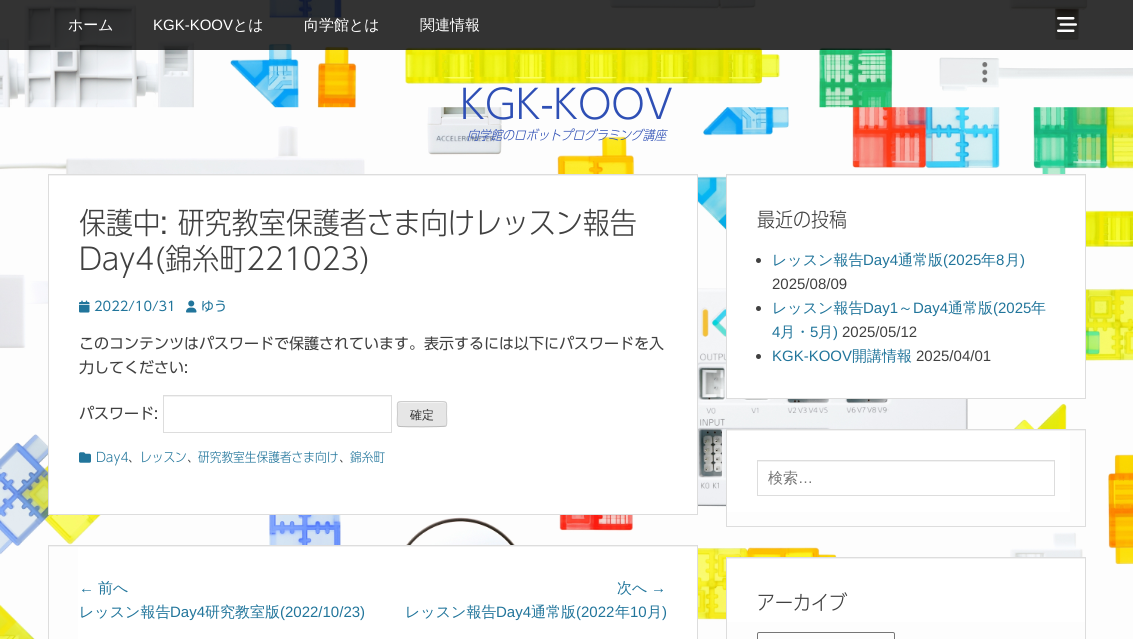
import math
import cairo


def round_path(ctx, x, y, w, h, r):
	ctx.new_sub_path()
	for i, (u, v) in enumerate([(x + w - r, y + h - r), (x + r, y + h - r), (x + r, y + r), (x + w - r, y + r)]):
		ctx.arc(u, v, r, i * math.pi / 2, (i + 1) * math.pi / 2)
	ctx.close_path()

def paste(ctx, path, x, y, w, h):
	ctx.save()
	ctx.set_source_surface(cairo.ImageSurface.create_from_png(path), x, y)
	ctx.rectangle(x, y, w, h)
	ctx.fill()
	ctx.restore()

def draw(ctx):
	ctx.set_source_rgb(1, 1, 1)
	ctx.paint()
	paste(ctx, 'media/1.png', 0, 0, 1133, 639)
	ctx.set_source_rgba(0, 0, 0, 0.8)
	ctx.rectangle(0, 0, 1133, 50)
	ctx.fill()
	ctx.select_font_face('WenQuanYi Zen Hei Medium')
	ctx.set_font_size(15)
	ctx.set_source_rgb(1, 1, 1)
	ctx.move_to(68, 30)
	ctx.show_text('ホーム')
	ctx.select_font_face('Liberation Sans')
	ctx.move_to(153, 30)
	ctx.show_text('KGK-KOOV')
	ctx.select_font_face('WenQuanYi Zen Hei Medium')
	for x, y, s in [
		(233, 30, 'とは'),
		(304, 30, '向学館とは'),
		(420, 30, '関連情報'),
	]:
		ctx.move_to(x, y)
		ctx.show_text(s)
	paste(ctx, 'media/2.png', 1057, 17, 20, 15)
	ctx.select_font_face('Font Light')
	ctx.set_font_size(40)
	ctx.set_source_rgb(0.18, 0.31, 0.71)
	ctx.move_to(460, 119)
	ctx.show_text('KGK-KOOV')
	ctx.select_font_face('Font Light', cairo.FONT_SLANT_ITALIC)
	ctx.set_font_size(13)
	ctx.move_to(467, 140)
	ctx.show_text('向学館のロボットプログラミング講座')
	ctx.set_source_rgb(1, 1, 1)
	ctx.rectangle(49, 176, 648, 338)
	ctx.fill()
	ctx.set_source_rgb(0.949, 0.949, 0.949)
	ctx.rectangle(49, 175, 648, 1)
	ctx.fill()
	ctx.rectangle(48.5, 174.5, 649, 340)
	ctx.set_source_rgb(0.867, 0.867, 0.867)
	ctx.set_line_width(1)
	ctx.stroke()
	ctx.select_font_face('Font Light')
	ctx.set_font_size(30)
	ctx.set_source_rgb(0.251, 0.251, 0.251)
	ctx.move_to(79, 234)
	ctx.show_text('保護中: 研究教室保護者さま向けレッスン報告')
	ctx.move_to(79, 270)
	ctx.show_text('Day4(錦糸町221023)')
	paste(ctx, 'media/3.png', 79, 300, 11, 13)
	ctx.select_font_face('Font')
	ctx.set_font_size(13)
	ctx.set_source_rgb(0.129, 0.459, 0.608)
	ctx.move_to(94, 311)
	ctx.show_text('2022/10/31')
	paste(ctx, 'media/4.png', 186, 300, 11, 13)
	ctx.move_to(201, 311)
	ctx.show_text('ゆう')
	ctx.set_font_size(15)
	ctx.set_source_rgb(0.251, 0.251, 0.251)
	for x, y, s in [
		(79, 349, 'このコンテンツはパスワードで保護されています。表示するには以下にパスワードを入'),
		(79, 373, '力してください:'),
		(79, 419, 'パスワード:'),
	]:
		ctx.move_to(x, y)
		ctx.show_text(s)
	ctx.set_source_rgb(0.949, 0.949, 0.949)
	ctx.rectangle(164, 396, 227, 1)
	ctx.fill()
	ctx.rectangle(163.5, 395.5, 228, 37)
	ctx.set_source_rgb(0.867, 0.867, 0.867)
	ctx.stroke()
	ctx.set_source_rgb(0.902, 0.902, 0.902)
	round_path(ctx, 397, 401, 50, 26, 3)
	ctx.fill()
	ctx.set_source_rgb(0.953, 0.953, 0.953)
	ctx.new_path()
	ctx.move_to(400, 403)
	ctx.line_to(444, 403)
	ctx.curve_to(445, 403, 446, 404, 446, 405)
	ctx.curve_to(446, 400, 441, 402, 437, 402)
	ctx.line_to(407, 402)
	ctx.curve_to(403, 402, 398, 400, 398, 405)
	ctx.curve_to(398, 404, 399, 403, 400, 403)
	ctx.close_path()
	ctx.fill()
	ctx.new_path()
	ctx.move_to(446, 426)
	ctx.curve_to(444.5, 427, 404, 427, 400, 426.5)
	ctx.line_to(398, 426)
	ctx.set_source_rgb(0.733, 0.733, 0.733)
	ctx.stroke()
	ctx.new_path()
	ctx.move_to(398, 426)
	ctx.curve_to(396.5, 424, 397.5, 416.5, 397.5, 414)
	ctx.curve_to(397.5, 401, 395, 401.5, 407.5, 401.5)
	ctx.line_to(436.5, 401.5)
	ctx.curve_to(449, 401.5, 446.5, 401, 446.5, 414)
	ctx.curve_to(446.5, 416.5, 447.5, 424, 446, 426)
	ctx.set_source_rgb(0.8, 0.8, 0.8)
	ctx.stroke()
	ctx.select_font_face('WenQuanYi Zen Hei Medium')
	ctx.set_font_size(12)
	ctx.set_source_rgb(0.18, 0.18, 0.18)
	ctx.move_to(410, 419)
	ctx.show_text('確定')
	paste(ctx, 'media/5.png', 79, 452, 12, 11)
	ctx.select_font_face('Font Light')
	ctx.set_font_size(13)
	ctx.set_source_rgb(0.129, 0.459, 0.608)
	ctx.move_to(96, 462)
	ctx.show_text('Day4')
	ctx.set_source_rgb(0.251, 0.251, 0.251)
	ctx.move_to(128, 462)
	ctx.show_text('、')
	ctx.set_source_rgb(0.129, 0.459, 0.608)
	ctx.move_to(140, 462)
	ctx.show_text('レッスン')
	ctx.set_source_rgb(0.251, 0.251, 0.251)
	ctx.move_to(187, 462)
	ctx.show_text('、')
	ctx.set_source_rgb(0.129, 0.459, 0.608)
	ctx.move_to(198, 462)
	ctx.show_text('研究教室生保護者さま向け')
	ctx.set_source_rgb(0.251, 0.251, 0.251)
	ctx.move_to(339, 462)
	ctx.show_text('、')
	ctx.set_source_rgb(0.129, 0.459, 0.608)
	ctx.move_to(350, 462)
	ctx.show_text('錦糸町')
	ctx.set_source_rgb(1, 1, 1)
	ctx.rectangle(78, 547, 619, 92)
	ctx.fill()
	ctx.set_source_rgb(0.949, 0.949, 0.949)
	ctx.rectangle(49, 546, 648, 1)
	ctx.fill()
	ctx.rectangle(48.5, 545.5, 649, 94)
	ctx.set_source_rgb(0.867, 0.867, 0.867)
	ctx.stroke()
	ctx.select_font_face('Liberation Sans')
	ctx.set_font_size(15)
	ctx.set_source_rgb(0.129, 0.459, 0.608)
	ctx.move_to(79, 593)
	ctx.show_text('←')
	ctx.select_font_face('WenQuanYi Zen Hei Medium')
	ctx.move_to(98, 593)
	ctx.show_text('前へ')
	ctx.move_to(79, 617)
	ctx.show_text('レッスン報告')
	ctx.select_font_face('Liberation Sans')
	ctx.move_to(170, 617)
	ctx.show_text('Day4')
	ctx.select_font_face('WenQuanYi Zen Hei Medium')
	ctx.move_to(205, 617)
	ctx.show_text('研究教室版')
	ctx.select_font_face('Liberation Sans')
	ctx.move_to(280, 617)
	ctx.show_text('(2022/10/23)')
	ctx.select_font_face('WenQuanYi Zen Hei Medium')
	ctx.move_to(617, 593)
	ctx.show_text('次へ')
	ctx.select_font_face('Liberation Sans')
	ctx.move_to(651, 593)
	ctx.show_text('→')
	ctx.select_font_face('WenQuanYi Zen Hei Medium')
	ctx.move_to(405, 617)
	ctx.show_text('レッスン報告')
	ctx.select_font_face('Liberation Sans')
	ctx.move_to(496, 617)
	ctx.show_text('Day4')
	ctx.select_font_face('WenQuanYi Zen Hei Medium')
	ctx.move_to(531, 617)
	ctx.show_text('通常版')
	ctx.select_font_face('Liberation Sans')
	ctx.move_to(576, 617)
	ctx.show_text('(2022')
	ctx.select_font_face('WenQuanYi Zen Hei Medium')
	ctx.move_to(615, 617)
	ctx.show_text('年')
	ctx.select_font_face('Liberation Sans')
	ctx.move_to(630, 617)
	ctx.show_text('10')
	ctx.select_font_face('WenQuanYi Zen Hei Medium')
	ctx.move_to(647, 617)
	ctx.show_text('月')
	ctx.select_font_face('Liberation Sans')
	ctx.move_to(662, 617)
	ctx.show_text(')')
	ctx.set_source_rgb(1, 1, 1)
	ctx.rectangle(727, 176, 358, 222)
	ctx.fill()
	ctx.set_source_rgb(0.949, 0.949, 0.949)
	ctx.rectangle(727, 175, 358, 1)
	ctx.fill()
	ctx.rectangle(726.5, 174.5, 359, 224)
	ctx.set_source_rgb(0.867, 0.867, 0.867)
	ctx.stroke()
	ctx.select_font_face('Font Light')
	ctx.set_font_size(20)
	ctx.set_source_rgb(0.251, 0.251, 0.251)
	ctx.move_to(757, 227)
	ctx.show_text('最近の投稿')
	ctx.new_path()
	ctx.arc(758.5, 260.5, 2.5, 0, 2 * math.pi)
	ctx.fill()
	ctx.select_font_face('WenQuanYi Zen Hei Medium')
	ctx.set_font_size(15)
	ctx.set_source_rgb(0.129, 0.459, 0.608)
	ctx.move_to(772, 265)
	ctx.show_text('レッスン報告')
	ctx.select_font_face('Liberation Sans')
	ctx.move_to(863, 265)
	ctx.show_text('Day4')
	ctx.select_font_face('WenQuanYi Zen Hei Medium')
	ctx.move_to(898, 265)
	ctx.show_text('通常版')
	ctx.select_font_face('Liberation Sans')
	ctx.move_to(943, 265)
	ctx.show_text('(2025')
	ctx.select_font_face('WenQuanYi Zen Hei Medium')
	ctx.move_to(981, 265)
	ctx.show_text('年')
	ctx.select_font_face('Liberation Sans')
	ctx.move_to(996, 265)
	ctx.show_text('8')
	ctx.select_font_face('WenQuanYi Zen Hei Medium')
	ctx.move_to(1005, 265)
	ctx.show_text('月')
	ctx.select_font_face('Liberation Sans')
	ctx.move_to(1020, 265)
	ctx.show_text(')')
	ctx.set_source_rgb(0.251, 0.251, 0.251)
	ctx.move_to(772, 289)
	ctx.show_text('2025/08/09')
	ctx.new_path()
	ctx.arc(758.5, 308.5, 2.5, 0, 2 * math.pi)
	ctx.fill()
	ctx.select_font_face('WenQuanYi Zen Hei Medium')
	ctx.set_source_rgb(0.129, 0.459, 0.608)
	ctx.move_to(772, 313)
	ctx.show_text('レッスン報告')
	ctx.select_font_face('Liberation Sans')
	ctx.move_to(863, 313)
	ctx.show_text('Day1')
	ctx.select_font_face('WenQuanYi Zen Hei Medium')
	ctx.move_to(898, 313)
	ctx.show_text('～')
	ctx.select_font_face('Liberation Sans')
	ctx.move_to(913, 313)
	ctx.show_text('Day4')
	ctx.select_font_face('WenQuanYi Zen Hei Medium')
	ctx.move_to(948, 313)
	ctx.show_text('通常版')
	ctx.select_font_face('Liberation Sans')
	ctx.move_to(993, 313)
	ctx.show_text('(2025')
	ctx.select_font_face('WenQuanYi Zen Hei Medium')
	ctx.move_to(1031, 313)
	ctx.show_text('年')
	ctx.select_font_face('Liberation Sans')
	ctx.move_to(772, 337)
	ctx.show_text('4')
	ctx.select_font_face('WenQuanYi Zen Hei Medium')
	ctx.move_to(780, 337)
	ctx.show_text('月・')
	ctx.select_font_face('Liberation Sans')
	ctx.move_to(810, 337)
	ctx.show_text('5')
	ctx.select_font_face('WenQuanYi Zen Hei Medium')
	ctx.move_to(818, 337)
	ctx.show_text('月')
	ctx.select_font_face('Liberation Sans')
	ctx.move_to(833, 337)
	ctx.show_text(')')
	ctx.set_source_rgb(0.251, 0.251, 0.251)
	ctx.move_to(842, 337)
	ctx.show_text('2025/05/12')
	ctx.new_path()
	ctx.arc(758.5, 356.5, 2.5, 0, 2 * math.pi)
	ctx.fill()
	ctx.set_source_rgb(0.129, 0.459, 0.608)
	ctx.move_to(772, 361)
	ctx.show_text('KGK-KOOV')
	ctx.select_font_face('WenQuanYi Zen Hei Medium')
	ctx.move_to(852, 361)
	ctx.show_text('開講情報')
	ctx.select_font_face('Liberation Sans')
	ctx.set_source_rgb(0.251, 0.251, 0.251)
	ctx.move_to(916, 361)
	ctx.show_text('2025/04/01')
	ctx.set_source_rgb(1, 1, 1)
	ctx.rectangle(727, 431, 343, 81)
	ctx.fill()
	ctx.set_source_rgb(0.949, 0.949, 0.949)
	ctx.rectangle(727, 430, 358, 1)
	ctx.fill()
	ctx.rectangle(726.5, 429.5, 359, 97)
	ctx.set_source_rgb(0.867, 0.867, 0.867)
	ctx.stroke()
	ctx.set_source_rgb(0.949, 0.949, 0.949)
	ctx.rectangle(758, 461, 296, 1)
	ctx.fill()
	ctx.rectangle(757.5, 460.5, 297, 35)
	ctx.set_source_rgb(0.867, 0.867, 0.867)
	ctx.stroke()
	ctx.select_font_face('WenQuanYi Zen Hei Medium')
	ctx.set_source_rgb(0.459, 0.459, 0.459)
	ctx.move_to(768, 483)
	ctx.show_text('検索')
	ctx.select_font_face('Liberation Sans')
	ctx.move_to(798, 483)
	ctx.show_text('…')
	ctx.set_source_rgb(1, 1, 1)
	ctx.rectangle(727, 559, 358, 63)
	ctx.fill()
	ctx.set_source_rgb(0.949, 0.949, 0.949)
	ctx.rectangle(727, 558, 358, 1)
	ctx.fill()
	ctx.rectangle(726.5, 557.5, 359, 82)
	ctx.set_source_rgb(0.867, 0.867, 0.867)
	ctx.stroke()
	ctx.select_font_face('Font Light')
	ctx.set_font_size(20)
	ctx.set_source_rgb(0.251, 0.251, 0.251)
	ctx.move_to(757, 610)
	ctx.show_text('アーカイブ')
	round_path(ctx, 757.5, 632.5, 137, 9, 1.5)
	ctx.set_source_rgb(0.463, 0.463, 0.463)
	ctx.stroke()


surface = cairo.ImageSurface(cairo.FORMAT_RGB24, 1133, 639)
ctx = cairo.Context(surface)
options = cairo.FontOptions()
options.set_hint_metrics(cairo.HINT_METRICS_OFF)
options.set_hint_style(cairo.HINT_STYLE_NONE)
ctx.set_font_options(options)
ctx.set_miter_limit(4)
draw(ctx)
surface.write_to_png('image.png')
